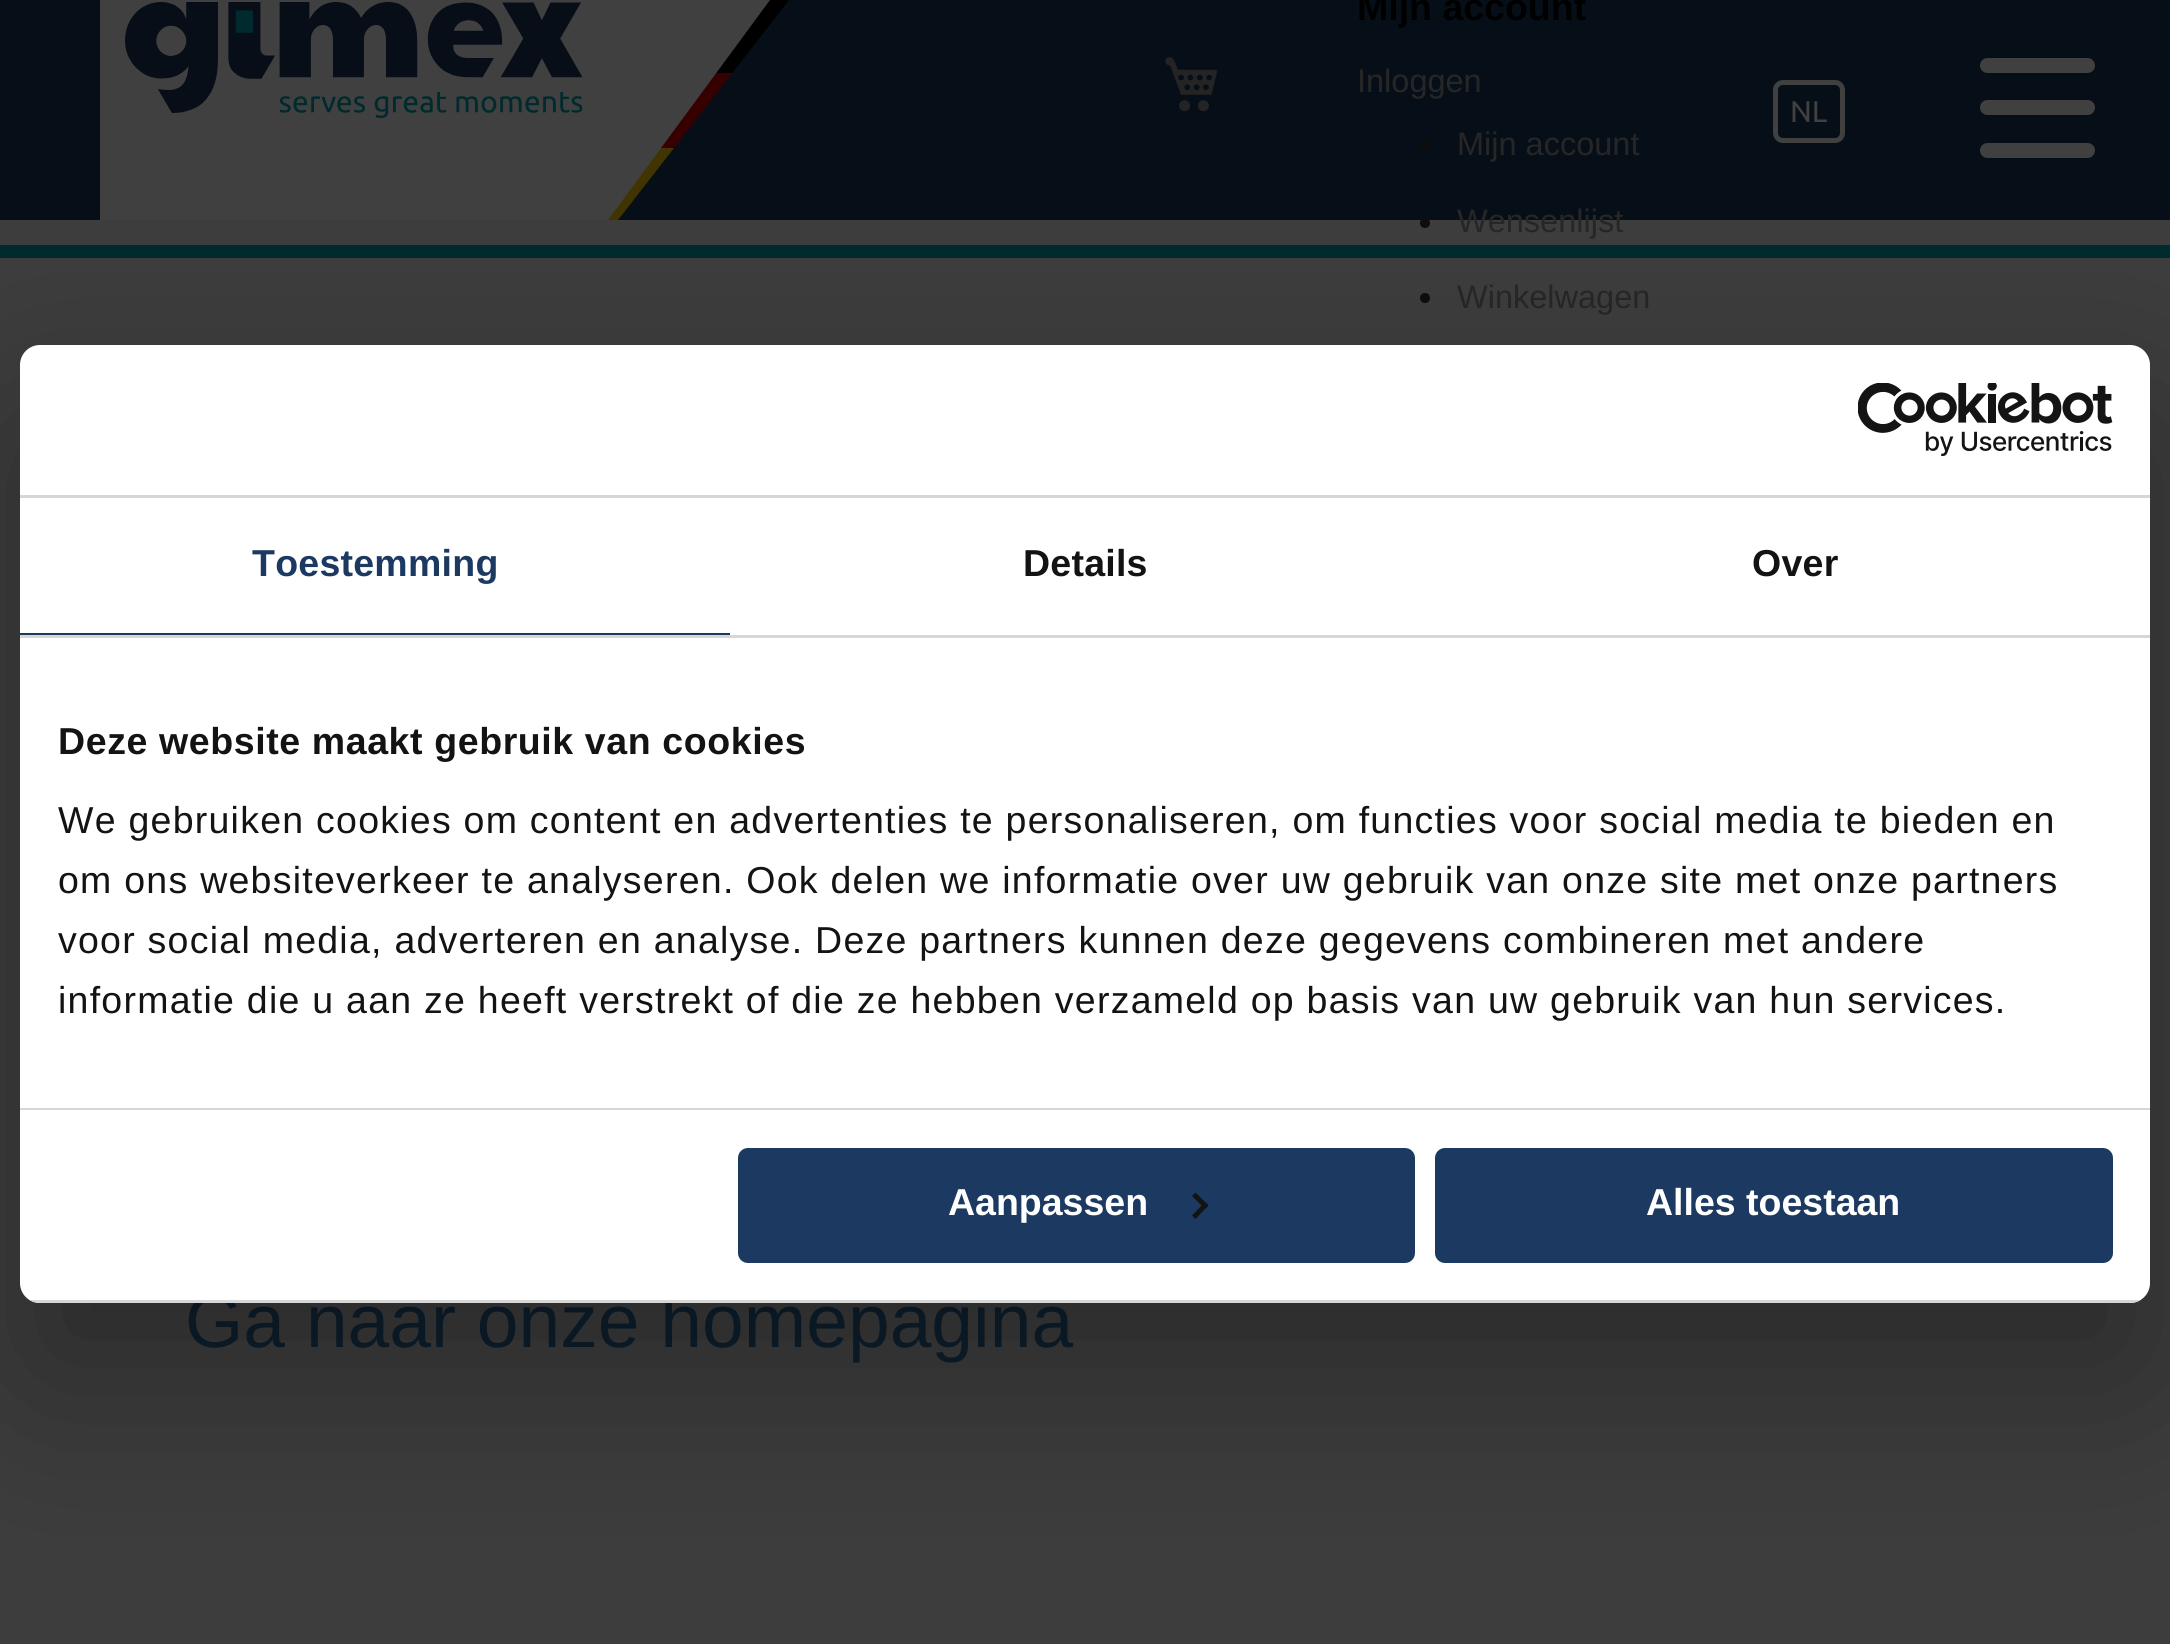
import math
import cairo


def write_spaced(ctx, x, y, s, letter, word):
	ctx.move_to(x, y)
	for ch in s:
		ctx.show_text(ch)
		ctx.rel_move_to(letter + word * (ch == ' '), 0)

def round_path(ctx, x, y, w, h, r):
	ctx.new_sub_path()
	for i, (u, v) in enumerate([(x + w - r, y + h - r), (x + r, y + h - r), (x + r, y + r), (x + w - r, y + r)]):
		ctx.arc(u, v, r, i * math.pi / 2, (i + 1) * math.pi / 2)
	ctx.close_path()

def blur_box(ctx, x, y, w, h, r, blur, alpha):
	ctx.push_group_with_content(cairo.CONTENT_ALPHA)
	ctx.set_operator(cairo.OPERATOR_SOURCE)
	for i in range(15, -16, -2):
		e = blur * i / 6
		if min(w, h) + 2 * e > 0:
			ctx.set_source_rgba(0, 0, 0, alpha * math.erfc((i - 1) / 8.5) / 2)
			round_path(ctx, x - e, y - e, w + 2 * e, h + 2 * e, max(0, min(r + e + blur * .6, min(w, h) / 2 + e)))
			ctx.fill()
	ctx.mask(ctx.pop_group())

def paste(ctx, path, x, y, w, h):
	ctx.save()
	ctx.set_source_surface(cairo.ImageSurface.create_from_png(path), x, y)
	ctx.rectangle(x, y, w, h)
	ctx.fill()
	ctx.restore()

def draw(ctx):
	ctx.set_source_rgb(0.239, 0.239, 0.239)
	ctx.paint()
	ctx.set_source_rgb(0, 0.169, 0.18)
	ctx.rectangle(0, 245, 2170, 13)
	ctx.fill()
	ctx.set_source_rgb(0.027, 0.059, 0.094)
	ctx.rectangle(0, 0, 2170, 220)
	ctx.fill()
	ctx.set_source_rgb(0.251, 0.251, 0.251)
	ctx.rectangle(100, 0, 508, 220)
	ctx.fill()
	paste(ctx, 'media/1.png', 125, 2, 458, 116)
	ctx.set_source_rgb(0.251, 0.204, 0)
	ctx.rectangle(608, 148, 66, 72)
	ctx.fill()
	ctx.set_source_rgb(0.216, 0, 0)
	ctx.rectangle(661, 73, 72, 75)
	ctx.fill()
	ctx.set_source_rgb(0, 0, 0)
	ctx.rectangle(716, 0, 74, 73)
	ctx.fill()
	ctx.set_source_rgb(0.251, 0.251, 0.251)
	ctx.new_path()
	ctx.move_to(608, 0)
	ctx.line_to(770, 0)
	ctx.line_to(608, 220)
	ctx.close_path()
	ctx.fill()
	ctx.set_source_rgb(0.027, 0.059, 0.094)
	ctx.new_path()
	ctx.move_to(828, 220)
	ctx.line_to(618, 220)
	ctx.line_to(828, -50)
	ctx.close_path()
	ctx.fill()
	paste(ctx, 'media/2.png', 1165, 57, 53, 55)
	ctx.select_font_face('Liberation Sans', cairo.FONT_SLANT_NORMAL, cairo.FONT_WEIGHT_BOLD)
	ctx.set_font_size(37.5)
	ctx.set_source_rgb(0, 0, 0)
	ctx.move_to(1357, 20)
	ctx.show_text('Mijn account')
	ctx.select_font_face('Liberation Sans')
	ctx.set_font_size(32.5)
	ctx.set_source_rgb(0.149, 0.149, 0.149)
	ctx.move_to(1357, 92)
	ctx.show_text('Inloggen')
	ctx.set_source_rgb(0.051, 0.051, 0.051)
	ctx.new_path()
	ctx.arc(1425, 145, 5, 0, 2 * math.pi)
	ctx.fill()
	ctx.set_source_rgb(0.149, 0.149, 0.149)
	ctx.move_to(1457, 155)
	ctx.show_text('Mijn account')
	ctx.set_source_rgb(0.051, 0.051, 0.051)
	ctx.new_path()
	ctx.arc(1425, 223, 5, 0, 2 * math.pi)
	ctx.fill()
	ctx.set_source_rgb(0.149, 0.149, 0.149)
	ctx.move_to(1457, 232)
	ctx.show_text('Wensenlijst')
	ctx.set_source_rgb(0.051, 0.051, 0.051)
	ctx.new_path()
	ctx.arc(1425, 298, 5, 0, 2 * math.pi)
	ctx.fill()
	ctx.set_source_rgb(0.149, 0.149, 0.149)
	ctx.move_to(1457, 308)
	ctx.show_text('Winkelwagen')
	round_path(ctx, 1775.5, 82.5, 67, 58, 7.5)
	ctx.set_source_rgb(0.251, 0.251, 0.251)
	ctx.set_line_width(5)
	ctx.stroke()
	ctx.select_font_face('Ubuntu')
	ctx.set_font_size(30)
	ctx.move_to(1790, 122)
	ctx.show_text('NL')
	round_path(ctx, 1980, 58, 115, 15, 7.5)
	ctx.fill()
	round_path(ctx, 1980, 100, 115, 15, 7.5)
	ctx.fill()
	round_path(ctx, 1980, 143, 115, 15, 7.5)
	ctx.fill()
	ctx.select_font_face('Liberation Sans')
	ctx.set_font_size(75)
	ctx.set_source_rgb(0.051, 0.122, 0.18)
	ctx.move_to(185, 1347)
	ctx.show_text('Ga naar onze homepagina')
	ctx.set_source_rgb(0, 0, 0)
	blur_box(ctx, 20, 425, 2130, 958, 20, 85, 0.3)
	ctx.set_source_rgb(1, 1, 1)
	round_path(ctx, 20, 345, 2130, 958, 20)
	ctx.fill()
	ctx.set_source_rgb(0.839, 0.839, 0.839)
	ctx.rectangle(20, 495, 2130, 3)
	ctx.fill()
	paste(ctx, 'media/3.png', 1858, 383, 255, 73)
	ctx.rectangle(20, 635, 2130, 3)
	ctx.fill()
	ctx.set_source_rgb(0.11, 0.227, 0.38)
	ctx.rectangle(20, 633, 710, 2)
	ctx.fill()
	ctx.select_font_face('Liberation Sans', cairo.FONT_SLANT_NORMAL, cairo.FONT_WEIGHT_BOLD)
	ctx.set_font_size(37.5)
	write_spaced(ctx, 252, 576, 'Toestemming', 0.25, 0)
	ctx.set_source_rgb(0.078, 0.078, 0.078)
	write_spaced(ctx, 1023, 576, 'Details', 0.25, 0)
	write_spaced(ctx, 1752, 576, 'Over', 0.25, 0)
	ctx.set_source_rgb(0.839, 0.839, 0.839)
	ctx.rectangle(20, 1108, 2130, 2)
	ctx.fill()
	ctx.set_source_rgb(0.078, 0.078, 0.078)
	write_spaced(ctx, 58, 754, 'Deze website maakt gebruik van cookies', 0.6, 0)
	ctx.select_font_face('Liberation Sans')
	for x, y, s in [
		(58, 833, 'We gebruiken cookies om content en advertenties te personaliseren, om functies voor social media te bieden en'),
		(58, 893, 'om ons websiteverkeer te analyseren. Ook delen we informatie over uw gebruik van onze site met onze partners'),
		(58, 953, 'voor social media, adverteren en analyse. Deze partners kunnen deze gegevens combineren met andere'),
		(58, 1013, 'informatie die u aan ze heeft verstrekt of die ze hebben verzameld op basis van uw gebruik van hun services.'),
	]:
		write_spaced(ctx, x, y, s, 1.25, 0)
	ctx.save()
	round_path(ctx, 20, 345, 2130, 958, 20)
	ctx.clip()
	ctx.set_source_rgb(0.839, 0.839, 0.839)
	ctx.rectangle(29, 1300, 2112, 3)
	ctx.fill()
	ctx.restore()
	ctx.set_source_rgb(0.11, 0.227, 0.38)
	round_path(ctx, 738, 1148, 677, 115, 10)
	ctx.fill()
	ctx.select_font_face('Liberation Sans', cairo.FONT_SLANT_NORMAL, cairo.FONT_WEIGHT_BOLD)
	ctx.set_source_rgb(1, 1, 1)
	ctx.move_to(948, 1215)
	ctx.show_text('Aanpassen')
	ctx.set_source_rgb(0.078, 0.078, 0.078)
	ctx.new_path()
	ctx.move_to(1195.5, 1192.5)
	ctx.line_to(1208.5, 1205.5)
	ctx.line_to(1205, 1209)
	ctx.line_to(1192, 1196)
	ctx.close_path()
	ctx.fill()
	ctx.new_path()
	ctx.move_to(1205, 1202)
	ctx.line_to(1208.5, 1205.5)
	ctx.line_to(1195.5, 1219)
	ctx.line_to(1192, 1215.5)
	ctx.close_path()
	ctx.fill()
	ctx.set_source_rgb(0.11, 0.227, 0.38)
	round_path(ctx, 1435, 1148, 678, 115, 10)
	ctx.fill()
	ctx.set_source_rgb(1, 1, 1)
	ctx.move_to(1646, 1215)
	ctx.show_text('Alles toestaan')


surface = cairo.ImageSurface(cairo.FORMAT_RGB24, 2170, 1644)
ctx = cairo.Context(surface)
options = cairo.FontOptions()
options.set_hint_metrics(cairo.HINT_METRICS_OFF)
options.set_hint_style(cairo.HINT_STYLE_NONE)
ctx.set_font_options(options)
ctx.set_miter_limit(4)
draw(ctx)
surface.write_to_png('image.png')
